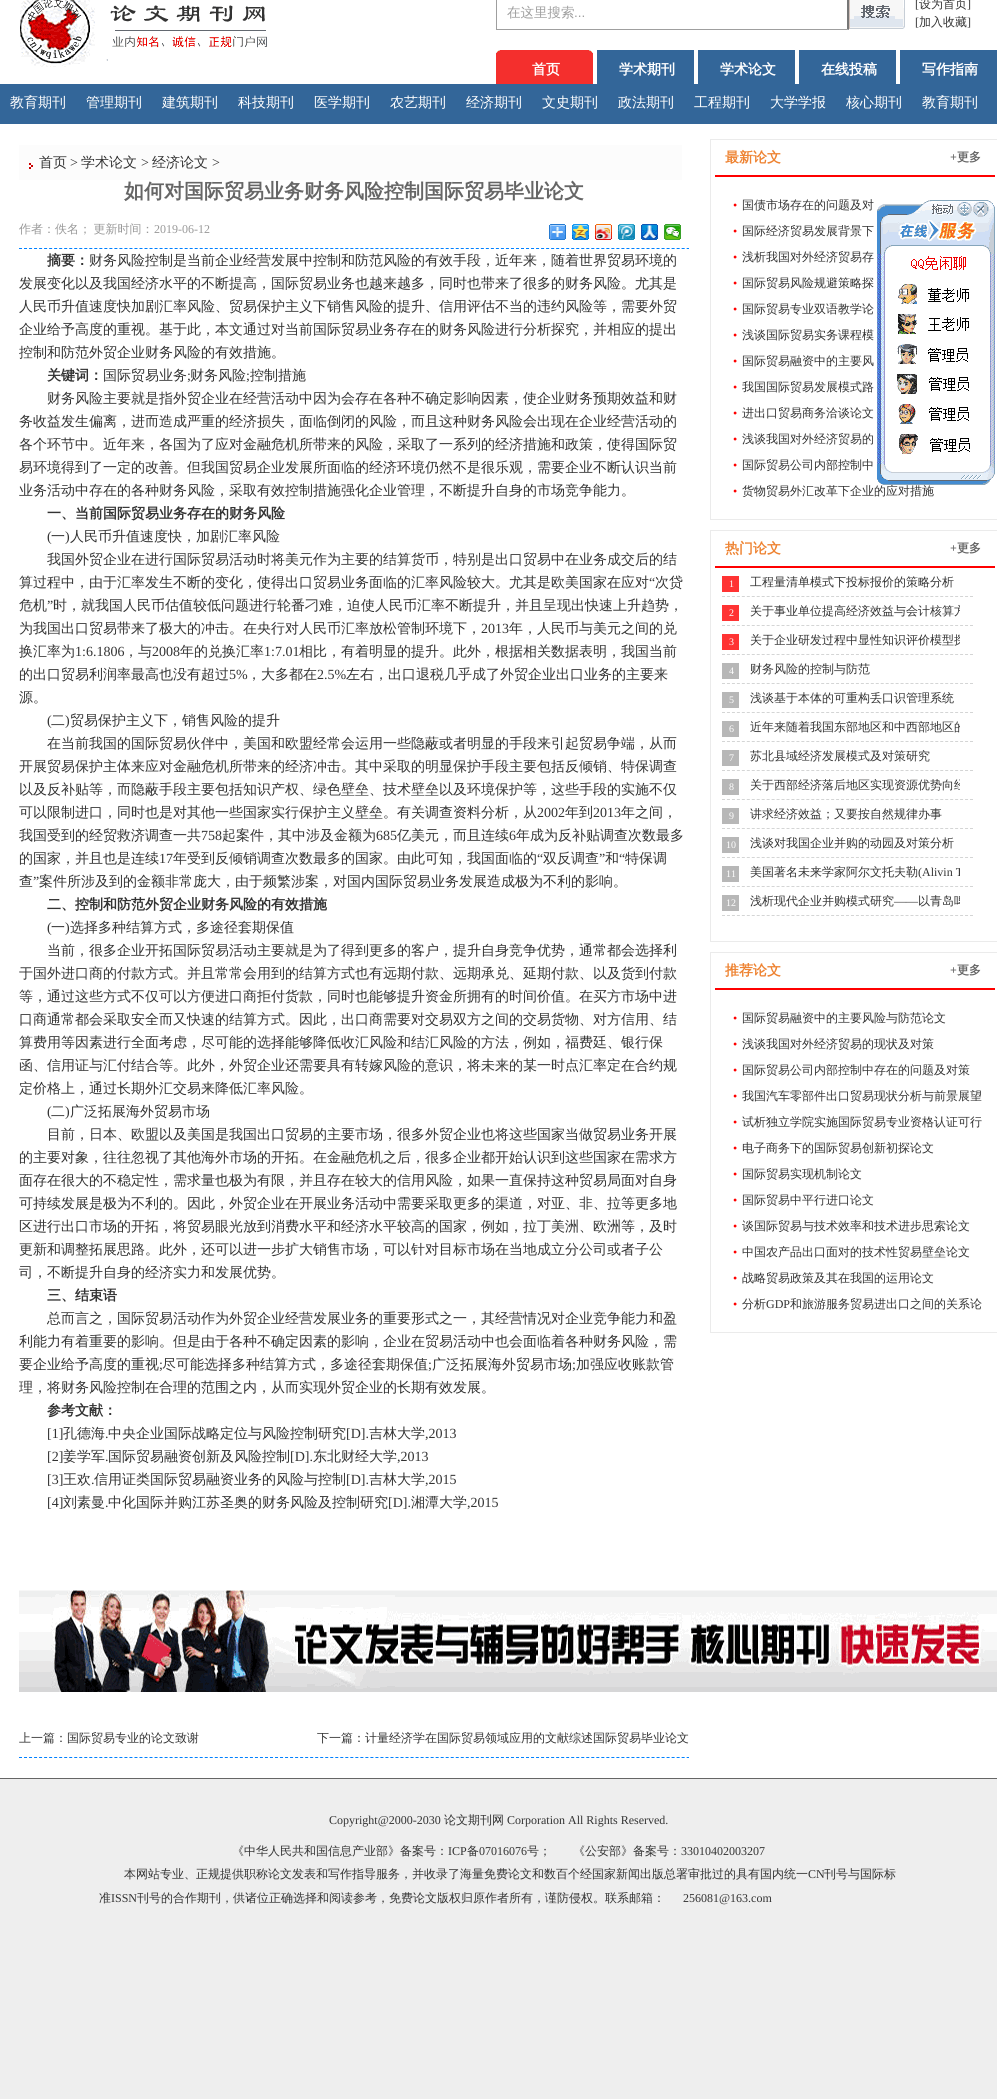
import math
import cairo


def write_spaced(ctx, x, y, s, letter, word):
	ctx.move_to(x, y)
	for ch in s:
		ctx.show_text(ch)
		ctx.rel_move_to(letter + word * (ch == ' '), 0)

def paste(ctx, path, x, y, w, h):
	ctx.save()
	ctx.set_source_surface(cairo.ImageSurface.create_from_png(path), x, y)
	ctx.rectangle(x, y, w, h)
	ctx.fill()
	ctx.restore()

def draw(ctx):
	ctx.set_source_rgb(1, 1, 1)
	ctx.paint()
	paste(ctx, 'media/1.png', 20, 0, 247, 67)
	ctx.set_source_rgb(0.463, 0.463, 0.463)
	ctx.new_path()
	ctx.move_to(849, -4)
	ctx.line_to(849, 30)
	ctx.line_to(847, 29)
	ctx.line_to(847, -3)
	ctx.close_path()
	ctx.fill()
	ctx.set_source_rgb(0.624, 0.624, 0.624)
	ctx.new_path()
	ctx.move_to(849, 30)
	ctx.line_to(496, 30)
	ctx.line_to(497, 29)
	ctx.line_to(847, 29)
	ctx.close_path()
	ctx.fill()
	ctx.rectangle(496, 0, 1, 30)
	ctx.fill()
	ctx.select_font_face('WenQuanYi Zen Hei Medium')
	ctx.set_font_size(13.5)
	ctx.move_to(507, 17)
	ctx.show_text('在这里搜索')
	ctx.select_font_face('Liberation Sans')
	ctx.move_to(574, 17)
	ctx.show_text('...')
	paste(ctx, 'media/2.png', 849, 0, 56, 29)
	ctx.set_source_rgb(0, 0, 0)
	ctx.move_to(875, 17)
	ctx.show_text('.')
	ctx.select_font_face('Liberation Serif')
	ctx.set_font_size(12)
	ctx.set_source_rgb(0.2, 0.2, 0.2)
	ctx.move_to(915, 8)
	ctx.show_text('[')
	ctx.select_font_face('WenQuanYi Zen Hei Medium')
	ctx.move_to(919, 8)
	ctx.show_text('设为首页')
	ctx.select_font_face('Liberation Serif')
	ctx.move_to(967, 8)
	ctx.show_text(']')
	ctx.move_to(915, 26)
	ctx.show_text('[')
	ctx.select_font_face('WenQuanYi Zen Hei Medium')
	ctx.move_to(919, 26)
	ctx.show_text('加入收藏')
	ctx.select_font_face('Liberation Serif')
	ctx.move_to(967, 26)
	ctx.show_text(']')
	paste(ctx, 'media/3.png', 496, 50, 97, 34)
	ctx.select_font_face('WenQuanYi Zen Hei', cairo.FONT_SLANT_NORMAL, cairo.FONT_WEIGHT_BOLD)
	ctx.set_font_size(14)
	ctx.set_source_rgb(1, 1, 1)
	ctx.move_to(532, 74)
	ctx.show_text('首页')
	ctx.set_source_rgb(0.2, 0.4, 0.6)
	ctx.rectangle(597, 50, 97, 34)
	ctx.fill()
	ctx.set_source_rgb(1, 1, 1)
	ctx.move_to(619, 74)
	ctx.show_text('学术期刊')
	ctx.set_source_rgb(0.2, 0.4, 0.6)
	ctx.rectangle(698, 50, 97, 34)
	ctx.fill()
	ctx.set_source_rgb(1, 1, 1)
	ctx.move_to(720, 74)
	ctx.show_text('学术论文')
	ctx.set_source_rgb(0.2, 0.4, 0.6)
	ctx.rectangle(799, 50, 97, 34)
	ctx.fill()
	ctx.set_source_rgb(1, 1, 1)
	ctx.move_to(821, 74)
	ctx.show_text('在线投稿')
	ctx.set_source_rgb(0.2, 0.4, 0.6)
	ctx.rectangle(900, 50, 97, 34)
	ctx.fill()
	ctx.set_source_rgb(1, 1, 1)
	ctx.move_to(922, 74)
	ctx.show_text('写作指南')
	ctx.set_source_rgb(0.2, 0.4, 0.6)
	ctx.rectangle(0, 84, 997, 40)
	ctx.fill()
	ctx.select_font_face('WenQuanYi Zen Hei Medium')
	ctx.set_source_rgb(1, 1, 1)
	for x, y, s in [
		(10, 107, '教育期刊'),
		(86, 107, '管理期刊'),
		(162, 107, '建筑期刊'),
		(238, 107, '科技期刊'),
		(314, 107, '医学期刊'),
		(390, 107, '农艺期刊'),
		(466, 107, '经济期刊'),
		(542, 107, '文史期刊'),
		(618, 107, '政法期刊'),
		(694, 107, '工程期刊'),
		(770, 107, '大学学报'),
		(846, 107, '核心期刊'),
		(922, 107, '教育期刊'),
	]:
		ctx.move_to(x, y)
		ctx.show_text(s)
	ctx.set_source_rgb(0.988, 0.988, 0.988)
	ctx.rectangle(19, 145, 663, 35)
	ctx.fill()
	paste(ctx, 'media/4.png', 29, 163, 4, 6)
	ctx.set_source_rgb(0.2, 0.2, 0.2)
	ctx.move_to(39, 167)
	ctx.show_text('首页')
	ctx.select_font_face('Liberation Serif')
	ctx.move_to(70, 167)
	ctx.show_text('>')
	ctx.select_font_face('WenQuanYi Zen Hei Medium')
	ctx.move_to(81, 167)
	ctx.show_text('学术论文')
	ctx.select_font_face('Liberation Serif')
	ctx.move_to(141, 167)
	ctx.show_text('>')
	ctx.select_font_face('WenQuanYi Zen Hei Medium')
	ctx.move_to(152, 167)
	ctx.show_text('经济论文')
	ctx.select_font_face('Liberation Serif')
	ctx.move_to(212, 167)
	ctx.show_text('>')
	ctx.select_font_face('WenQuanYi Zen Hei', cairo.FONT_SLANT_NORMAL, cairo.FONT_WEIGHT_BOLD)
	ctx.set_font_size(20)
	ctx.set_source_rgb(0.4, 0.4, 0.4)
	ctx.move_to(124, 198)
	ctx.show_text('如何对国际贸易业务财务风险控制国际贸易毕业论文')
	ctx.new_path()
	ctx.move_to(19, 248.5)
	ctx.line_to(689, 248.5)
	ctx.set_source_rgb(0, 0.502, 1)
	ctx.set_line_width(1)
	ctx.set_dash([3, 2.02])
	ctx.stroke()
	ctx.select_font_face('WenQuanYi Zen Hei Medium')
	ctx.set_font_size(12)
	ctx.set_source_rgb(0.6, 0.6, 0.6)
	write_spaced(ctx, 19, 233, '作者：佚名； 更新时间：', 0, -1)
	ctx.select_font_face('Liberation Serif')
	ctx.move_to(154, 233)
	ctx.show_text('2019-06-12')
	paste(ctx, 'media/5.png', 549, 224, 17, 16)
	paste(ctx, 'media/6.png', 572, 224, 17, 16)
	paste(ctx, 'media/7.png', 595, 224, 17, 16)
	paste(ctx, 'media/8.png', 618, 224, 17, 16)
	paste(ctx, 'media/9.png', 641, 224, 17, 16)
	paste(ctx, 'media/10.png', 664, 224, 17, 16)
	ctx.select_font_face('WenQuanYi Zen Hei', cairo.FONT_SLANT_NORMAL, cairo.FONT_WEIGHT_BOLD)
	ctx.set_font_size(14)
	ctx.set_source_rgb(0.2, 0.2, 0.2)
	ctx.move_to(47, 265)
	ctx.show_text('摘要：')
	ctx.select_font_face('WenQuanYi Zen Hei Medium')
	for x, y, s in [
		(89, 265, '财务风险控制是当前企业经营发展中控制和防范风险的有效手段，近年来，随着世界贸易环境的'),
		(19, 288, '发展变化以及我国经济水平的不断提高，国际贸易业务也越来越多，同时也带来了很多的财务风险。尤其是'),
		(19, 311, '人民币升值速度快加剧汇率风险、贸易保护主义下销售风险的提升、信用评估不当的违约风险等，需要外贸'),
		(19, 334, '企业给予高度的重视。基于此，本文通过对当前国际贸易业务存在的财务风险进行分析探究，并相应的提出'),
		(19, 357, '控制和防范外贸企业财务风险的有效措施。'),
	]:
		ctx.move_to(x, y)
		ctx.show_text(s)
	ctx.select_font_face('WenQuanYi Zen Hei', cairo.FONT_SLANT_NORMAL, cairo.FONT_WEIGHT_BOLD)
	ctx.move_to(47, 380)
	ctx.show_text('关键词：')
	ctx.select_font_face('WenQuanYi Zen Hei Medium')
	ctx.move_to(103, 380)
	ctx.show_text('国际贸易业务')
	ctx.select_font_face('Liberation Serif')
	ctx.move_to(187, 380)
	ctx.show_text(';')
	ctx.select_font_face('WenQuanYi Zen Hei Medium')
	ctx.move_to(190, 380)
	ctx.show_text('财务风险')
	ctx.select_font_face('Liberation Serif')
	ctx.move_to(246, 380)
	ctx.show_text(';')
	ctx.select_font_face('WenQuanYi Zen Hei Medium')
	for x, y, s in [
		(250, 380, '控制措施'),
		(47, 403, '财务风险主要就是指外贸企业在经营活动中因为会存在各种不确定影响因素，使企业财务预期效益和财'),
		(19, 426, '务收益发生偏离，进而造成严重的经济损失，面临倒闭的风险，而且这种财务风险会出现在企业经营活动的'),
		(19, 449, '各个环节中。近年来，各国为了应对金融危机所带来的风险，采取了一系列的经济措施和政策，使得国际贸'),
		(19, 472, '易环境得到了一定的改善。但我国贸易企业发展所面临的经济环境仍然不是很乐观，需要企业不断认识当前'),
		(19, 495, '业务活动中存在的各种财务风险，采取有效控制措施强化企业管理，不断提升自身的市场竞争能力。'),
	]:
		ctx.move_to(x, y)
		ctx.show_text(s)
	ctx.select_font_face('WenQuanYi Zen Hei', cairo.FONT_SLANT_NORMAL, cairo.FONT_WEIGHT_BOLD)
	ctx.move_to(47, 518)
	ctx.show_text('一、当前国际贸易业务存在的财务风险')
	ctx.select_font_face('Liberation Serif')
	ctx.move_to(47, 541)
	ctx.show_text('(')
	ctx.select_font_face('WenQuanYi Zen Hei Medium')
	ctx.move_to(51, 541)
	ctx.show_text('一')
	ctx.select_font_face('Liberation Serif')
	ctx.move_to(65, 541)
	ctx.show_text(')')
	ctx.select_font_face('WenQuanYi Zen Hei Medium')
	for x, y, s in [
		(70, 541, '人民币升值速度快，加剧汇率风险'),
		(47, 564, '我国外贸企业在进行国际贸易活动时将美元作为主要的结算货币，特别是出口贸易中在业务成交后的结'),
		(19, 587, '算过程中，由于汇率发生不断的变化，使得出口贸易业务面临的汇率风险较大。尤其是欧美国家在应对'),
	]:
		ctx.move_to(x, y)
		ctx.show_text(s)
	ctx.select_font_face('Liberation Serif')
	ctx.move_to(649, 587)
	ctx.show_text('“')
	ctx.select_font_face('WenQuanYi Zen Hei Medium')
	ctx.move_to(655, 587)
	ctx.show_text('次贷')
	ctx.move_to(19, 610)
	ctx.show_text('危机')
	ctx.select_font_face('Liberation Serif')
	ctx.move_to(47, 610)
	ctx.show_text('”')
	ctx.select_font_face('WenQuanYi Zen Hei Medium')
	ctx.move_to(53, 610)
	ctx.show_text('时，就我国人民币估值较低问题进行轮番刁难，迫使人民币汇率不断提升，并且呈现出快速上升趋势，')
	ctx.move_to(19, 633)
	ctx.show_text('为我国出口贸易带来了极大的冲击。在央行对人民币汇率放松管制环境下，')
	ctx.select_font_face('Liberation Serif')
	ctx.move_to(481, 633)
	ctx.show_text('2013')
	ctx.select_font_face('WenQuanYi Zen Hei Medium')
	ctx.move_to(509, 633)
	ctx.show_text('年，人民币与美元之间的兑')
	ctx.move_to(19, 656)
	ctx.show_text('换汇率为')
	ctx.select_font_face('Liberation Serif')
	ctx.move_to(75, 656)
	ctx.show_text('1:6.1806')
	ctx.select_font_face('WenQuanYi Zen Hei Medium')
	ctx.move_to(124, 656)
	ctx.show_text('，与')
	ctx.select_font_face('Liberation Serif')
	ctx.move_to(152, 656)
	ctx.show_text('2008')
	ctx.select_font_face('WenQuanYi Zen Hei Medium')
	ctx.move_to(180, 656)
	ctx.show_text('年的兑换汇率')
	ctx.select_font_face('Liberation Serif')
	ctx.move_to(264, 656)
	ctx.show_text('1:7.01')
	ctx.select_font_face('WenQuanYi Zen Hei Medium')
	ctx.move_to(299, 656)
	ctx.show_text('相比，有着明显的提升。此外，根据相关数据表明，我国当前')
	ctx.move_to(19, 679)
	ctx.show_text('的出口贸易利润率最高也没有超过')
	ctx.select_font_face('Liberation Serif')
	ctx.move_to(229, 679)
	ctx.show_text('5%')
	ctx.select_font_face('WenQuanYi Zen Hei Medium')
	ctx.move_to(247, 679)
	ctx.show_text('，大多都在')
	ctx.select_font_face('Liberation Serif')
	ctx.move_to(317, 679)
	ctx.show_text('2.5%')
	ctx.select_font_face('WenQuanYi Zen Hei Medium')
	ctx.move_to(346, 679)
	ctx.show_text('左右，出口退税几乎成了外贸企业出口业务的主要来')
	ctx.move_to(19, 702)
	ctx.show_text('源。')
	ctx.select_font_face('Liberation Serif')
	ctx.move_to(47, 725)
	ctx.show_text('(')
	ctx.select_font_face('WenQuanYi Zen Hei Medium')
	ctx.move_to(51, 725)
	ctx.show_text('二')
	ctx.select_font_face('Liberation Serif')
	ctx.move_to(65, 725)
	ctx.show_text(')')
	ctx.select_font_face('WenQuanYi Zen Hei Medium')
	for x, y, s in [
		(70, 725, '贸易保护主义下，销售风险的提升'),
		(47, 748, '在当前我国的国际贸易伙伴中，美国和欧盟经常会运用一些隐蔽或者明显的手段来引起贸易争端，从而'),
		(19, 771, '开展贸易保护主体来应对金融危机所带来的经济冲击。其中采取的明显保护手段主要包括反倾销、特保调查'),
		(19, 794, '以及反补贴等，而隐蔽手段主要包括知识产权、绿色壁垒、技术壁垒以及环境保护等，这些手段的实施不仅'),
		(19, 817, '可以限制进口，同时也是对其他一些国家实行保护主义壁垒。有关调查资料分析，从'),
	]:
		ctx.move_to(x, y)
		ctx.show_text(s)
	ctx.select_font_face('Liberation Serif')
	ctx.move_to(537, 817)
	ctx.show_text('2002')
	ctx.select_font_face('WenQuanYi Zen Hei Medium')
	ctx.move_to(565, 817)
	ctx.show_text('年到')
	ctx.select_font_face('Liberation Serif')
	ctx.move_to(593, 817)
	ctx.show_text('2013')
	ctx.select_font_face('WenQuanYi Zen Hei Medium')
	ctx.move_to(621, 817)
	ctx.show_text('年之间，')
	ctx.move_to(19, 840)
	ctx.show_text('我国受到的经贸救济调查一共')
	ctx.select_font_face('Liberation Serif')
	ctx.move_to(201, 840)
	ctx.show_text('758')
	ctx.select_font_face('WenQuanYi Zen Hei Medium')
	ctx.move_to(222, 840)
	ctx.show_text('起案件，其中涉及金额为')
	ctx.select_font_face('Liberation Serif')
	ctx.move_to(376, 840)
	ctx.show_text('685')
	ctx.select_font_face('WenQuanYi Zen Hei Medium')
	ctx.move_to(397, 840)
	ctx.show_text('亿美元，而且连续')
	ctx.select_font_face('Liberation Serif')
	ctx.move_to(509, 840)
	ctx.show_text('6')
	ctx.select_font_face('WenQuanYi Zen Hei Medium')
	ctx.move_to(516, 840)
	ctx.show_text('年成为反补贴调查次数最多')
	ctx.move_to(19, 863)
	ctx.show_text('的国家，并且也是连续')
	ctx.select_font_face('Liberation Serif')
	ctx.move_to(159, 863)
	ctx.show_text('17')
	ctx.select_font_face('WenQuanYi Zen Hei Medium')
	ctx.move_to(173, 863)
	ctx.show_text('年受到反倾销调查次数最多的国家。由此可知，我国面临的')
	ctx.select_font_face('Liberation Serif')
	ctx.move_to(537, 863)
	ctx.show_text('“')
	ctx.select_font_face('WenQuanYi Zen Hei Medium')
	ctx.move_to(543, 863)
	ctx.show_text('双反调查')
	ctx.select_font_face('Liberation Serif')
	ctx.move_to(599, 863)
	ctx.show_text('”')
	ctx.select_font_face('WenQuanYi Zen Hei Medium')
	ctx.move_to(605, 863)
	ctx.show_text('和')
	ctx.select_font_face('Liberation Serif')
	ctx.move_to(619, 863)
	ctx.show_text('“')
	ctx.select_font_face('WenQuanYi Zen Hei Medium')
	ctx.move_to(625, 863)
	ctx.show_text('特保调')
	ctx.move_to(19, 886)
	ctx.show_text('查')
	ctx.select_font_face('Liberation Serif')
	ctx.move_to(33, 886)
	ctx.show_text('”')
	ctx.select_font_face('WenQuanYi Zen Hei Medium')
	ctx.move_to(39, 886)
	ctx.show_text('案件所涉及到的金额非常庞大，由于频繁涉案，对国内国际贸易业务发展造成极为不利的影响。')
	ctx.select_font_face('WenQuanYi Zen Hei', cairo.FONT_SLANT_NORMAL, cairo.FONT_WEIGHT_BOLD)
	ctx.move_to(47, 909)
	ctx.show_text('二、控制和防范外贸企业财务风险的有效措施')
	ctx.select_font_face('Liberation Serif')
	ctx.move_to(47, 932)
	ctx.show_text('(')
	ctx.select_font_face('WenQuanYi Zen Hei Medium')
	ctx.move_to(51, 932)
	ctx.show_text('一')
	ctx.select_font_face('Liberation Serif')
	ctx.move_to(65, 932)
	ctx.show_text(')')
	ctx.select_font_face('WenQuanYi Zen Hei Medium')
	for x, y, s in [
		(70, 932, '选择多种结算方式，多途径套期保值'),
		(47, 955, '当前，很多企业开拓国际贸易活动主要就是为了得到更多的客户，提升自身竞争优势，通常都会选择利'),
		(19, 978, '于国外进口商的付款方式。并且常常会用到的结算方式也有远期付款、远期承兑、延期付款、以及货到付款'),
		(19, 1001, '等，通过这些方式不仅可以方便进口商拒付货款，同时也能够提升资金所拥有的时间价值。在买方市场中进'),
		(19, 1024, '口商通常都会采取安全而又快速的结算方式。因此，出口商需要对交易双方之间的交易货物、对方信用、结'),
		(19, 1047, '算费用等因素进行全面考虑，尽可能的选择能够降低收汇风险和结汇风险的方法，例如，福费廷、银行保'),
		(19, 1070, '函、信用证与汇付结合等。此外，外贸企业还需要具有转嫁风险的意识，将未来的某一时点汇率定在合约规'),
		(19, 1093, '定价格上，通过长期外汇交易来降低汇率风险。'),
	]:
		ctx.move_to(x, y)
		ctx.show_text(s)
	ctx.select_font_face('Liberation Serif')
	ctx.move_to(47, 1116)
	ctx.show_text('(')
	ctx.select_font_face('WenQuanYi Zen Hei Medium')
	ctx.move_to(51, 1116)
	ctx.show_text('二')
	ctx.select_font_face('Liberation Serif')
	ctx.move_to(65, 1116)
	ctx.show_text(')')
	ctx.select_font_face('WenQuanYi Zen Hei Medium')
	for x, y, s in [
		(70, 1116, '广泛拓展海外贸易市场'),
		(47, 1139, '目前，日本、欧盟以及美国是我国出口贸易的主要市场，很多外贸企业也将这些国家当做贸易业务开展'),
		(19, 1162, '的主要对象，往往忽视了其他海外市场的开拓。在金融危机之后，很多企业都开始认识到这些国家在需求方'),
		(19, 1185, '面存在很大的不稳定性，需求量也极为有限，并且存在较大的信用风险，如果一直保持这种贸易局面对自身'),
		(19, 1208, '可持续发展是极为不利的。因此，外贸企业在开展业务活动中需要采取更多的渠道，对亚、非、拉等更多地'),
		(19, 1231, '区进行出口市场的开拓，将贸易眼光放到消费水平和经济水平较高的国家，例如，拉丁美洲、欧洲等，及时'),
		(19, 1254, '更新和调整拓展思路。此外，还可以进一步扩大销售市场，可以针对目标市场在当地成立分公司或者子公'),
		(19, 1277, '司，不断提升自身的经济实力和发展优势。'),
	]:
		ctx.move_to(x, y)
		ctx.show_text(s)
	ctx.select_font_face('WenQuanYi Zen Hei', cairo.FONT_SLANT_NORMAL, cairo.FONT_WEIGHT_BOLD)
	ctx.move_to(47, 1300)
	ctx.show_text('三、结束语')
	ctx.select_font_face('WenQuanYi Zen Hei Medium')
	for x, y, s in [
		(47, 1323, '总而言之，国际贸易活动作为外贸企业经营发展业务的重要形式之一，其经营情况对企业竞争能力和盈'),
		(19, 1346, '利能力有着重要的影响。但是由于各种不确定因素的影响，企业在贸易活动中也会面临着各种财务风险，需'),
		(19, 1369, '要企业给予高度的重视'),
	]:
		ctx.move_to(x, y)
		ctx.show_text(s)
	ctx.select_font_face('Liberation Serif')
	ctx.move_to(159, 1369)
	ctx.show_text(';')
	ctx.select_font_face('WenQuanYi Zen Hei Medium')
	ctx.move_to(162, 1369)
	ctx.show_text('尽可能选择多种结算方式，多途径套期保值')
	ctx.select_font_face('Liberation Serif')
	ctx.move_to(428, 1369)
	ctx.show_text(';')
	ctx.select_font_face('WenQuanYi Zen Hei Medium')
	ctx.move_to(432, 1369)
	ctx.show_text('广泛拓展海外贸易市场')
	ctx.select_font_face('Liberation Serif')
	ctx.move_to(572, 1369)
	ctx.show_text(';')
	ctx.select_font_face('WenQuanYi Zen Hei Medium')
	ctx.move_to(576, 1369)
	ctx.show_text('加强应收账款管')
	ctx.move_to(19, 1392)
	ctx.show_text('理，将财务风险控制在合理的范围之内，从而实现外贸企业的长期有效发展。')
	ctx.select_font_face('WenQuanYi Zen Hei', cairo.FONT_SLANT_NORMAL, cairo.FONT_WEIGHT_BOLD)
	ctx.move_to(47, 1415)
	ctx.show_text('参考文献：')
	ctx.select_font_face('Liberation Serif')
	ctx.move_to(47, 1438)
	ctx.show_text('[1]')
	ctx.select_font_face('WenQuanYi Zen Hei Medium')
	ctx.move_to(63, 1438)
	ctx.show_text('孔德海')
	ctx.select_font_face('Liberation Serif')
	ctx.move_to(105, 1438)
	ctx.show_text('.')
	ctx.select_font_face('WenQuanYi Zen Hei Medium')
	ctx.move_to(108, 1438)
	ctx.show_text('中央企业国际战略定位与风险控制研究')
	ctx.select_font_face('Liberation Serif')
	ctx.move_to(346, 1438)
	ctx.show_text('[D].')
	ctx.select_font_face('WenQuanYi Zen Hei Medium')
	ctx.move_to(369, 1438)
	ctx.show_text('吉林大学')
	ctx.select_font_face('Liberation Serif')
	ctx.move_to(425, 1438)
	ctx.show_text(',2013')
	ctx.move_to(47, 1461)
	ctx.show_text('[2]')
	ctx.select_font_face('WenQuanYi Zen Hei Medium')
	ctx.move_to(63, 1461)
	ctx.show_text('姜学军')
	ctx.select_font_face('Liberation Serif')
	ctx.move_to(105, 1461)
	ctx.show_text('.')
	ctx.select_font_face('WenQuanYi Zen Hei Medium')
	ctx.move_to(108, 1461)
	ctx.show_text('国际贸易融资创新及风险控制')
	ctx.select_font_face('Liberation Serif')
	ctx.move_to(290, 1461)
	ctx.show_text('[D].')
	ctx.select_font_face('WenQuanYi Zen Hei Medium')
	ctx.move_to(313, 1461)
	ctx.show_text('东北财经大学')
	ctx.select_font_face('Liberation Serif')
	ctx.move_to(397, 1461)
	ctx.show_text(',2013')
	ctx.move_to(47, 1484)
	ctx.show_text('[3]')
	ctx.select_font_face('WenQuanYi Zen Hei Medium')
	ctx.move_to(63, 1484)
	ctx.show_text('王欢')
	ctx.select_font_face('Liberation Serif')
	ctx.move_to(91, 1484)
	ctx.show_text('.')
	ctx.select_font_face('WenQuanYi Zen Hei Medium')
	ctx.move_to(94, 1484)
	ctx.show_text('信用证类国际贸易融资业务的风险与控制')
	ctx.select_font_face('Liberation Serif')
	ctx.move_to(346, 1484)
	ctx.show_text('[D].')
	ctx.select_font_face('WenQuanYi Zen Hei Medium')
	ctx.move_to(369, 1484)
	ctx.show_text('吉林大学')
	ctx.select_font_face('Liberation Serif')
	ctx.move_to(425, 1484)
	ctx.show_text(',2015')
	ctx.move_to(47, 1507)
	ctx.show_text('[4]')
	ctx.select_font_face('WenQuanYi Zen Hei Medium')
	ctx.move_to(63, 1507)
	ctx.show_text('刘素曼')
	ctx.select_font_face('Liberation Serif')
	ctx.move_to(105, 1507)
	ctx.show_text('.')
	ctx.select_font_face('WenQuanYi Zen Hei Medium')
	ctx.move_to(108, 1507)
	ctx.show_text('中化国际并购江苏圣奥的财务风险及控制研究')
	ctx.select_font_face('Liberation Serif')
	ctx.move_to(388, 1507)
	ctx.show_text('[D].')
	ctx.select_font_face('WenQuanYi Zen Hei Medium')
	ctx.move_to(411, 1507)
	ctx.show_text('湘潭大学')
	ctx.select_font_face('Liberation Serif')
	ctx.move_to(467, 1507)
	ctx.show_text(',2015')
	paste(ctx, 'media/11.png', 19, 1590, 978, 102)
	ctx.new_path()
	ctx.move_to(19, 1757.5)
	ctx.line_to(689, 1757.5)
	ctx.set_source_rgb(0, 0.502, 1)
	ctx.stroke()
	ctx.select_font_face('WenQuanYi Zen Hei Medium')
	ctx.set_font_size(12)
	ctx.set_source_rgb(0.2, 0.2, 0.2)
	ctx.move_to(19, 1742)
	ctx.show_text('上一篇：国际贸易专业的论文致谢')
	ctx.move_to(317, 1742)
	ctx.show_text('下一篇：计量经济学在国际贸易领域应用的文献综述国际贸易毕业论文')
	ctx.rectangle(710.5, 139.5, 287, 380)
	ctx.set_source_rgb(0.918, 0.918, 0.918)
	ctx.set_dash([])
	ctx.stroke()
	ctx.set_source_rgb(1, 0, 0)
	ctx.rectangle(715, 175, 280, 2)
	ctx.fill()
	ctx.select_font_face('WenQuanYi Zen Hei', cairo.FONT_SLANT_NORMAL, cairo.FONT_WEIGHT_BOLD)
	ctx.set_font_size(14)
	ctx.set_source_rgb(0.933, 0.514, 0.196)
	ctx.move_to(725, 162)
	ctx.show_text('最新论文')
	ctx.select_font_face('Liberation Serif', cairo.FONT_SLANT_NORMAL, cairo.FONT_WEIGHT_BOLD)
	ctx.set_font_size(12)
	ctx.set_source_rgb(0.4, 0.4, 0.4)
	ctx.move_to(950, 161)
	ctx.show_text('+')
	ctx.select_font_face('WenQuanYi Zen Hei', cairo.FONT_SLANT_NORMAL, cairo.FONT_WEIGHT_BOLD)
	ctx.move_to(957, 161)
	ctx.show_text('更多')
	ctx.select_font_face('Liberation Serif')
	ctx.set_source_rgb(1, 0, 0)
	ctx.move_to(733, 209)
	ctx.show_text('•')
	ctx.select_font_face('WenQuanYi Zen Hei Medium')
	ctx.set_source_rgb(0.2, 0.2, 0.2)
	ctx.move_to(742, 209)
	ctx.show_text('国债市场存在的问题及对')
	ctx.select_font_face('Liberation Serif')
	ctx.set_source_rgb(1, 0, 0)
	ctx.move_to(733, 235)
	ctx.show_text('•')
	ctx.select_font_face('WenQuanYi Zen Hei Medium')
	ctx.set_source_rgb(0.2, 0.2, 0.2)
	ctx.move_to(742, 235)
	ctx.show_text('国际经济贸易发展背景下')
	ctx.select_font_face('Liberation Serif')
	ctx.set_source_rgb(1, 0, 0)
	ctx.move_to(733, 261)
	ctx.show_text('•')
	ctx.select_font_face('WenQuanYi Zen Hei Medium')
	ctx.set_source_rgb(0.2, 0.2, 0.2)
	ctx.move_to(742, 261)
	ctx.show_text('浅析我国对外经济贸易存')
	ctx.select_font_face('Liberation Serif')
	ctx.set_source_rgb(1, 0, 0)
	ctx.move_to(733, 287)
	ctx.show_text('•')
	ctx.select_font_face('WenQuanYi Zen Hei Medium')
	ctx.set_source_rgb(0.2, 0.2, 0.2)
	ctx.move_to(742, 287)
	ctx.show_text('国际贸易风险规避策略探')
	ctx.select_font_face('Liberation Serif')
	ctx.set_source_rgb(1, 0, 0)
	ctx.move_to(733, 313)
	ctx.show_text('•')
	ctx.select_font_face('WenQuanYi Zen Hei Medium')
	ctx.set_source_rgb(0.2, 0.2, 0.2)
	ctx.move_to(742, 313)
	ctx.show_text('国际贸易专业双语教学论')
	ctx.select_font_face('Liberation Serif')
	ctx.set_source_rgb(1, 0, 0)
	ctx.move_to(733, 339)
	ctx.show_text('•')
	ctx.select_font_face('WenQuanYi Zen Hei Medium')
	ctx.set_source_rgb(0.2, 0.2, 0.2)
	ctx.move_to(742, 339)
	ctx.show_text('浅谈国际贸易实务课程模')
	ctx.select_font_face('Liberation Serif')
	ctx.set_source_rgb(1, 0, 0)
	ctx.move_to(733, 365)
	ctx.show_text('•')
	ctx.select_font_face('WenQuanYi Zen Hei Medium')
	ctx.set_source_rgb(0.2, 0.2, 0.2)
	ctx.move_to(742, 365)
	ctx.show_text('国际贸易融资中的主要风')
	ctx.select_font_face('Liberation Serif')
	ctx.set_source_rgb(1, 0, 0)
	ctx.move_to(733, 391)
	ctx.show_text('•')
	ctx.select_font_face('WenQuanYi Zen Hei Medium')
	ctx.set_source_rgb(0.2, 0.2, 0.2)
	ctx.move_to(742, 391)
	ctx.show_text('我国国际贸易发展模式路')
	ctx.select_font_face('Liberation Serif')
	ctx.set_source_rgb(1, 0, 0)
	ctx.move_to(733, 417)
	ctx.show_text('•')
	ctx.select_font_face('WenQuanYi Zen Hei Medium')
	ctx.set_source_rgb(0.2, 0.2, 0.2)
	ctx.move_to(742, 417)
	ctx.show_text('进出口贸易商务洽谈论文')
	ctx.select_font_face('Liberation Serif')
	ctx.set_source_rgb(1, 0, 0)
	ctx.move_to(733, 443)
	ctx.show_text('•')
	ctx.select_font_face('WenQuanYi Zen Hei Medium')
	ctx.set_source_rgb(0.2, 0.2, 0.2)
	ctx.move_to(742, 443)
	ctx.show_text('浅谈我国对外经济贸易的')
	ctx.select_font_face('Liberation Serif')
	ctx.set_source_rgb(1, 0, 0)
	ctx.move_to(733, 469)
	ctx.show_text('•')
	ctx.select_font_face('WenQuanYi Zen Hei Medium')
	ctx.set_source_rgb(0.2, 0.2, 0.2)
	ctx.move_to(742, 469)
	ctx.show_text('国际贸易公司内部控制中')
	ctx.select_font_face('Liberation Serif')
	ctx.set_source_rgb(1, 0, 0)
	ctx.move_to(733, 495)
	ctx.show_text('•')
	ctx.select_font_face('WenQuanYi Zen Hei Medium')
	ctx.set_source_rgb(0.2, 0.2, 0.2)
	ctx.move_to(742, 495)
	ctx.show_text('货物贸易外汇改革下企业的应对措施')
	ctx.rectangle(710.5, 530.5, 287, 411)
	ctx.set_source_rgb(0.918, 0.918, 0.918)
	ctx.stroke()
	ctx.set_source_rgb(1, 0, 0)
	ctx.rectangle(715, 566, 280, 2)
	ctx.fill()
	ctx.select_font_face('WenQuanYi Zen Hei', cairo.FONT_SLANT_NORMAL, cairo.FONT_WEIGHT_BOLD)
	ctx.set_font_size(14)
	ctx.set_source_rgb(0.933, 0.514, 0.196)
	ctx.move_to(725, 553)
	ctx.show_text('热门论文')
	ctx.select_font_face('Liberation Serif', cairo.FONT_SLANT_NORMAL, cairo.FONT_WEIGHT_BOLD)
	ctx.set_font_size(12)
	ctx.set_source_rgb(0.4, 0.4, 0.4)
	ctx.move_to(950, 552)
	ctx.show_text('+')
	ctx.select_font_face('WenQuanYi Zen Hei', cairo.FONT_SLANT_NORMAL, cairo.FONT_WEIGHT_BOLD)
	ctx.move_to(957, 552)
	ctx.show_text('更多')
	ctx.new_path()
	ctx.move_to(722, 596.5)
	ctx.line_to(973, 596.5)
	ctx.set_source_rgb(0.831, 0.835, 0.835)
	ctx.set_dash([3, 1.96])
	ctx.stroke()
	ctx.set_source_rgb(1, 0.2, 0.2)
	ctx.rectangle(722, 576, 17, 16)
	ctx.fill()
	ctx.select_font_face('Liberation Serif')
	ctx.set_font_size(10)
	ctx.set_source_rgb(1, 1, 1)
	ctx.move_to(729, 587)
	ctx.show_text('1')
	ctx.select_font_face('WenQuanYi Zen Hei Medium')
	ctx.set_font_size(12)
	ctx.set_source_rgb(0.2, 0.2, 0.2)
	ctx.move_to(750, 586)
	ctx.show_text('工程量清单模式下投标报价的策略分析')
	ctx.new_path()
	ctx.move_to(722, 625.5)
	ctx.line_to(973, 625.5)
	ctx.set_source_rgb(0.831, 0.835, 0.835)
	ctx.stroke()
	ctx.set_source_rgb(1, 0.2, 0.2)
	ctx.rectangle(722, 605, 17, 16)
	ctx.fill()
	ctx.select_font_face('Liberation Serif')
	ctx.set_font_size(10)
	ctx.set_source_rgb(1, 1, 1)
	ctx.move_to(729, 616)
	ctx.show_text('2')
	ctx.save()
	ctx.rectangle(739, 603, 221, 21)
	ctx.clip()
	ctx.select_font_face('WenQuanYi Zen Hei Medium')
	ctx.set_font_size(12)
	ctx.set_source_rgb(0.2, 0.2, 0.2)
	ctx.move_to(750, 615)
	ctx.show_text('关于事业单位提高经济效益与会计核算方')
	ctx.restore()
	ctx.new_path()
	ctx.move_to(722, 654.5)
	ctx.line_to(973, 654.5)
	ctx.set_source_rgb(0.831, 0.835, 0.835)
	ctx.stroke()
	ctx.set_source_rgb(1, 0.2, 0.2)
	ctx.rectangle(722, 634, 17, 16)
	ctx.fill()
	ctx.set_source_rgb(1, 1, 1)
	ctx.move_to(729, 645)
	ctx.show_text('3')
	ctx.save()
	ctx.rectangle(739, 632, 221, 21)
	ctx.clip()
	ctx.select_font_face('WenQuanYi Zen Hei Medium')
	ctx.set_font_size(12)
	ctx.set_source_rgb(0.2, 0.2, 0.2)
	ctx.move_to(750, 644)
	ctx.show_text('关于企业研发过程中显性知识评价模型探')
	ctx.restore()
	ctx.new_path()
	ctx.move_to(722, 683.5)
	ctx.line_to(973, 683.5)
	ctx.set_source_rgb(0.831, 0.835, 0.835)
	ctx.stroke()
	ctx.set_source_rgb(0.718, 0.718, 0.718)
	ctx.rectangle(722, 663, 17, 16)
	ctx.fill()
	ctx.set_source_rgb(1, 1, 1)
	ctx.move_to(729, 674)
	ctx.show_text('4')
	ctx.select_font_face('WenQuanYi Zen Hei Medium')
	ctx.set_font_size(12)
	ctx.set_source_rgb(0.2, 0.2, 0.2)
	ctx.move_to(750, 673)
	ctx.show_text('财务风险的控制与防范')
	ctx.new_path()
	ctx.move_to(722, 712.5)
	ctx.line_to(973, 712.5)
	ctx.set_source_rgb(0.831, 0.835, 0.835)
	ctx.stroke()
	ctx.set_source_rgb(0.718, 0.718, 0.718)
	ctx.rectangle(722, 692, 17, 16)
	ctx.fill()
	ctx.select_font_face('Liberation Serif')
	ctx.set_font_size(10)
	ctx.set_source_rgb(1, 1, 1)
	ctx.move_to(729, 703)
	ctx.show_text('5')
	ctx.select_font_face('WenQuanYi Zen Hei Medium')
	ctx.set_font_size(12)
	ctx.set_source_rgb(0.2, 0.2, 0.2)
	ctx.move_to(750, 702)
	ctx.show_text('浅谈基于本体的可重构丢口识管理系统')
	ctx.new_path()
	ctx.move_to(722, 741.5)
	ctx.line_to(973, 741.5)
	ctx.set_source_rgb(0.831, 0.835, 0.835)
	ctx.stroke()
	ctx.set_source_rgb(0.718, 0.718, 0.718)
	ctx.rectangle(722, 721, 17, 16)
	ctx.fill()
	ctx.select_font_face('Liberation Serif')
	ctx.set_font_size(10)
	ctx.set_source_rgb(1, 1, 1)
	ctx.move_to(729, 732)
	ctx.show_text('6')
	ctx.save()
	ctx.rectangle(739, 719, 221, 21)
	ctx.clip()
	ctx.select_font_face('WenQuanYi Zen Hei Medium')
	ctx.set_font_size(12)
	ctx.set_source_rgb(0.2, 0.2, 0.2)
	ctx.move_to(750, 731)
	ctx.show_text('近年来随着我国东部地区和中西部地区的')
	ctx.restore()
	ctx.new_path()
	ctx.move_to(722, 770.5)
	ctx.line_to(973, 770.5)
	ctx.set_source_rgb(0.831, 0.835, 0.835)
	ctx.stroke()
	ctx.set_source_rgb(0.718, 0.718, 0.718)
	ctx.rectangle(722, 750, 17, 16)
	ctx.fill()
	ctx.set_source_rgb(1, 1, 1)
	ctx.move_to(729, 761)
	ctx.show_text('7')
	ctx.select_font_face('WenQuanYi Zen Hei Medium')
	ctx.set_font_size(12)
	ctx.set_source_rgb(0.2, 0.2, 0.2)
	ctx.move_to(750, 760)
	ctx.show_text('苏北县域经济发展模式及对策研究')
	ctx.new_path()
	ctx.move_to(722, 799.5)
	ctx.line_to(973, 799.5)
	ctx.set_source_rgb(0.831, 0.835, 0.835)
	ctx.stroke()
	ctx.set_source_rgb(0.718, 0.718, 0.718)
	ctx.rectangle(722, 779, 17, 16)
	ctx.fill()
	ctx.select_font_face('Liberation Serif')
	ctx.set_font_size(10)
	ctx.set_source_rgb(1, 1, 1)
	ctx.move_to(729, 790)
	ctx.show_text('8')
	ctx.save()
	ctx.rectangle(739, 777, 221, 21)
	ctx.clip()
	ctx.select_font_face('WenQuanYi Zen Hei Medium')
	ctx.set_font_size(12)
	ctx.set_source_rgb(0.2, 0.2, 0.2)
	ctx.move_to(750, 789)
	ctx.show_text('关于西部经济落后地区实现资源优势向经')
	ctx.restore()
	ctx.new_path()
	ctx.move_to(722, 828.5)
	ctx.line_to(973, 828.5)
	ctx.set_source_rgb(0.831, 0.835, 0.835)
	ctx.stroke()
	ctx.set_source_rgb(0.718, 0.718, 0.718)
	ctx.rectangle(722, 808, 17, 16)
	ctx.fill()
	ctx.set_source_rgb(1, 1, 1)
	ctx.move_to(729, 819)
	ctx.show_text('9')
	ctx.select_font_face('WenQuanYi Zen Hei Medium')
	ctx.set_font_size(12)
	ctx.set_source_rgb(0.2, 0.2, 0.2)
	ctx.move_to(750, 818)
	ctx.show_text('讲求经济效益；又要按自然规律办事')
	ctx.new_path()
	ctx.move_to(722, 857.5)
	ctx.line_to(973, 857.5)
	ctx.set_source_rgb(0.831, 0.835, 0.835)
	ctx.stroke()
	ctx.set_source_rgb(0.718, 0.718, 0.718)
	ctx.rectangle(722, 837, 17, 16)
	ctx.fill()
	ctx.select_font_face('Liberation Serif')
	ctx.set_font_size(10)
	ctx.set_source_rgb(1, 1, 1)
	ctx.move_to(726, 848)
	ctx.show_text('10')
	ctx.select_font_face('WenQuanYi Zen Hei Medium')
	ctx.set_font_size(12)
	ctx.set_source_rgb(0.2, 0.2, 0.2)
	ctx.move_to(750, 847)
	ctx.show_text('浅谈对我国企业并购的动园及对策分析')
	ctx.new_path()
	ctx.move_to(722, 886.5)
	ctx.line_to(973, 886.5)
	ctx.set_source_rgb(0.831, 0.835, 0.835)
	ctx.stroke()
	ctx.set_source_rgb(0.718, 0.718, 0.718)
	ctx.rectangle(722, 866, 17, 16)
	ctx.fill()
	ctx.select_font_face('Liberation Serif')
	ctx.set_font_size(10)
	ctx.set_source_rgb(1, 1, 1)
	ctx.move_to(726, 877)
	ctx.show_text('11')
	ctx.select_font_face('WenQuanYi Zen Hei Medium')
	ctx.set_font_size(12)
	ctx.set_source_rgb(0.2, 0.2, 0.2)
	ctx.move_to(750, 876)
	ctx.show_text('美国著名未来学家阿尔文托夫勒')
	ctx.save()
	ctx.rectangle(739, 864, 221, 21)
	ctx.clip()
	ctx.select_font_face('Liberation Serif')
	ctx.move_to(918, 876)
	ctx.show_text('(Alivin T')
	ctx.restore()
	ctx.new_path()
	ctx.move_to(722, 915.5)
	ctx.line_to(973, 915.5)
	ctx.set_source_rgb(0.831, 0.835, 0.835)
	ctx.stroke()
	ctx.set_source_rgb(0.718, 0.718, 0.718)
	ctx.rectangle(722, 895, 17, 16)
	ctx.fill()
	ctx.select_font_face('Liberation Serif')
	ctx.set_font_size(10)
	ctx.set_source_rgb(1, 1, 1)
	ctx.move_to(726, 906)
	ctx.show_text('12')
	ctx.select_font_face('WenQuanYi Zen Hei Medium')
	ctx.set_font_size(12)
	ctx.set_source_rgb(0.2, 0.2, 0.2)
	ctx.move_to(750, 905)
	ctx.show_text('浅析现代企业并购模式研究')
	ctx.select_font_face('Liberation Serif')
	ctx.move_to(894, 905)
	ctx.show_text('——')
	ctx.save()
	ctx.rectangle(739, 893, 221, 21)
	ctx.clip()
	ctx.select_font_face('WenQuanYi Zen Hei Medium')
	ctx.move_to(918, 905)
	ctx.show_text('以青岛啤')
	ctx.restore()
	ctx.rectangle(710.5, 952.5, 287, 380)
	ctx.set_source_rgb(0.918, 0.918, 0.918)
	ctx.set_dash([])
	ctx.stroke()
	ctx.set_source_rgb(1, 0, 0)
	ctx.rectangle(715, 988, 280, 2)
	ctx.fill()
	ctx.select_font_face('WenQuanYi Zen Hei', cairo.FONT_SLANT_NORMAL, cairo.FONT_WEIGHT_BOLD)
	ctx.set_font_size(14)
	ctx.set_source_rgb(0.933, 0.514, 0.196)
	ctx.move_to(725, 975)
	ctx.show_text('推荐论文')
	ctx.select_font_face('Liberation Serif', cairo.FONT_SLANT_NORMAL, cairo.FONT_WEIGHT_BOLD)
	ctx.set_font_size(12)
	ctx.set_source_rgb(0.4, 0.4, 0.4)
	ctx.move_to(950, 974)
	ctx.show_text('+')
	ctx.select_font_face('WenQuanYi Zen Hei', cairo.FONT_SLANT_NORMAL, cairo.FONT_WEIGHT_BOLD)
	ctx.move_to(957, 974)
	ctx.show_text('更多')
	ctx.select_font_face('Liberation Serif')
	ctx.set_source_rgb(1, 0, 0)
	ctx.move_to(733, 1022)
	ctx.show_text('•')
	ctx.select_font_face('WenQuanYi Zen Hei Medium')
	ctx.set_source_rgb(0.2, 0.2, 0.2)
	ctx.move_to(742, 1022)
	ctx.show_text('国际贸易融资中的主要风险与防范论文')
	ctx.select_font_face('Liberation Serif')
	ctx.set_source_rgb(1, 0, 0)
	ctx.move_to(733, 1048)
	ctx.show_text('•')
	ctx.select_font_face('WenQuanYi Zen Hei Medium')
	ctx.set_source_rgb(0.2, 0.2, 0.2)
	ctx.move_to(742, 1048)
	ctx.show_text('浅谈我国对外经济贸易的现状及对策')
	ctx.select_font_face('Liberation Serif')
	ctx.set_source_rgb(1, 0, 0)
	ctx.move_to(733, 1074)
	ctx.show_text('•')
	ctx.select_font_face('WenQuanYi Zen Hei Medium')
	ctx.set_source_rgb(0.2, 0.2, 0.2)
	ctx.move_to(742, 1074)
	ctx.show_text('国际贸易公司内部控制中存在的问题及对策')
	ctx.select_font_face('Liberation Serif')
	ctx.set_source_rgb(1, 0, 0)
	ctx.move_to(733, 1100)
	ctx.show_text('•')
	ctx.select_font_face('WenQuanYi Zen Hei Medium')
	ctx.set_source_rgb(0.2, 0.2, 0.2)
	ctx.move_to(742, 1100)
	ctx.show_text('我国汽车零部件出口贸易现状分析与前景展望')
	ctx.select_font_face('Liberation Serif')
	ctx.set_source_rgb(1, 0, 0)
	ctx.move_to(733, 1126)
	ctx.show_text('•')
	ctx.select_font_face('WenQuanYi Zen Hei Medium')
	ctx.set_source_rgb(0.2, 0.2, 0.2)
	ctx.move_to(742, 1126)
	ctx.show_text('试析独立学院实施国际贸易专业资格认证可行')
	ctx.select_font_face('Liberation Serif')
	ctx.set_source_rgb(1, 0, 0)
	ctx.move_to(733, 1152)
	ctx.show_text('•')
	ctx.select_font_face('WenQuanYi Zen Hei Medium')
	ctx.set_source_rgb(0.2, 0.2, 0.2)
	ctx.move_to(742, 1152)
	ctx.show_text('电子商务下的国际贸易创新初探论文')
	ctx.select_font_face('Liberation Serif')
	ctx.set_source_rgb(1, 0, 0)
	ctx.move_to(733, 1178)
	ctx.show_text('•')
	ctx.select_font_face('WenQuanYi Zen Hei Medium')
	ctx.set_source_rgb(0.2, 0.2, 0.2)
	ctx.move_to(742, 1178)
	ctx.show_text('国际贸易实现机制论文')
	ctx.select_font_face('Liberation Serif')
	ctx.set_source_rgb(1, 0, 0)
	ctx.move_to(733, 1204)
	ctx.show_text('•')
	ctx.select_font_face('WenQuanYi Zen Hei Medium')
	ctx.set_source_rgb(0.2, 0.2, 0.2)
	ctx.move_to(742, 1204)
	ctx.show_text('国际贸易中平行进口论文')
	ctx.select_font_face('Liberation Serif')
	ctx.set_source_rgb(1, 0, 0)
	ctx.move_to(733, 1230)
	ctx.show_text('•')
	ctx.select_font_face('WenQuanYi Zen Hei Medium')
	ctx.set_source_rgb(0.2, 0.2, 0.2)
	ctx.move_to(742, 1230)
	ctx.show_text('谈国际贸易与技术效率和技术进步思索论文')
	ctx.select_font_face('Liberation Serif')
	ctx.set_source_rgb(1, 0, 0)
	ctx.move_to(733, 1256)
	ctx.show_text('•')
	ctx.select_font_face('WenQuanYi Zen Hei Medium')
	ctx.set_source_rgb(0.2, 0.2, 0.2)
	ctx.move_to(742, 1256)
	ctx.show_text('中国农产品出口面对的技术性贸易壁垒论文')
	ctx.select_font_face('Liberation Serif')
	ctx.set_source_rgb(1, 0, 0)
	ctx.move_to(733, 1282)
	ctx.show_text('•')
	ctx.select_font_face('WenQuanYi Zen Hei Medium')
	ctx.set_source_rgb(0.2, 0.2, 0.2)
	ctx.move_to(742, 1282)
	ctx.show_text('战略贸易政策及其在我国的运用论文')
	ctx.select_font_face('Liberation Serif')
	ctx.set_source_rgb(1, 0, 0)
	ctx.move_to(733, 1308)
	ctx.show_text('•')
	ctx.select_font_face('WenQuanYi Zen Hei Medium')
	ctx.set_source_rgb(0.2, 0.2, 0.2)
	ctx.move_to(742, 1308)
	ctx.show_text('分析')
	ctx.select_font_face('Liberation Serif')
	ctx.move_to(766, 1308)
	ctx.show_text('GDP')
	ctx.select_font_face('WenQuanYi Zen Hei Medium')
	ctx.move_to(790, 1308)
	ctx.show_text('和旅游服务贸易进出口之间的关系论')
	ctx.set_source_rgb(0.4, 0.4, 0.4)
	ctx.rectangle(0, 1778, 997, 1)
	ctx.fill()
	ctx.set_source_rgb(0.933, 0.933, 0.933)
	ctx.rectangle(0, 1779, 997, 320)
	ctx.fill()
	paste(ctx, 'media/12.png', 877, 200, 118, 54)
	paste(ctx, 'media/13.png', 877, 254, 118, 210)
	paste(ctx, 'media/14.png', 911, 256, 55, 14)
	paste(ctx, 'media/15.png', 898, 284, 71, 20)
	paste(ctx, 'media/16.png', 898, 314, 71, 20)
	paste(ctx, 'media/17.png', 897, 344, 71, 20)
	paste(ctx, 'media/18.png', 897, 374, 72, 20)
	paste(ctx, 'media/19.png', 898, 404, 71, 20)
	paste(ctx, 'media/20.png', 899, 434, 71, 20)
	paste(ctx, 'media/21.png', 877, 464, 118, 21)
	ctx.select_font_face('Liberation Serif')
	ctx.set_source_rgb(0.2, 0.2, 0.2)
	ctx.move_to(329, 1824)
	ctx.show_text('Copyright@2000-2030')
	ctx.select_font_face('WenQuanYi Zen Hei Medium')
	ctx.move_to(444, 1824)
	ctx.show_text('论文期刊网')
	ctx.select_font_face('Liberation Serif')
	ctx.move_to(507, 1824)
	ctx.show_text('Corporation All Rights Reserved.')
	ctx.select_font_face('WenQuanYi Zen Hei Medium')
	ctx.move_to(232, 1855)
	ctx.show_text('《中华人民共和国信息产业部》备案号：')
	ctx.select_font_face('Liberation Serif')
	ctx.move_to(448, 1855)
	ctx.show_text('ICP')
	ctx.select_font_face('WenQuanYi Zen Hei Medium')
	ctx.move_to(467, 1855)
	ctx.show_text('备')
	ctx.select_font_face('Liberation Serif')
	ctx.move_to(479, 1855)
	ctx.show_text('07016076')
	ctx.select_font_face('WenQuanYi Zen Hei Medium')
	ctx.move_to(527, 1855)
	ctx.show_text('号；')
	ctx.move_to(573, 1855)
	ctx.show_text('《公安部》备案号：')
	ctx.select_font_face('Liberation Serif')
	ctx.move_to(681, 1855)
	ctx.show_text('33010402003207')
	ctx.select_font_face('WenQuanYi Zen Hei Medium')
	ctx.move_to(124, 1878)
	ctx.show_text('本网站专业、正规提供职称论文发表和写作指导服务，并收录了海量免费论文和数百个经国家新闻出版总署审批过的具有国内统一')
	ctx.select_font_face('Liberation Serif')
	ctx.move_to(808, 1878)
	ctx.show_text('CN')
	ctx.select_font_face('WenQuanYi Zen Hei Medium')
	ctx.move_to(824, 1878)
	ctx.show_text('刊号与国际标')
	ctx.move_to(99, 1902)
	ctx.show_text('准')
	ctx.select_font_face('Liberation Serif')
	ctx.move_to(111, 1902)
	ctx.show_text('ISSN')
	ctx.select_font_face('WenQuanYi Zen Hei Medium')
	ctx.move_to(137, 1902)
	ctx.show_text('刊号的合作期刊，供诸位正确选择和阅读参考，免费论文版权归原作者所有，谨防侵权。联系邮箱：')
	ctx.select_font_face('Liberation Serif')
	ctx.move_to(683, 1902)
	ctx.show_text('256081@163.com')


surface = cairo.ImageSurface(cairo.FORMAT_RGB24, 997, 2099)
ctx = cairo.Context(surface)
options = cairo.FontOptions()
options.set_hint_metrics(cairo.HINT_METRICS_OFF)
options.set_hint_style(cairo.HINT_STYLE_NONE)
ctx.set_font_options(options)
ctx.set_miter_limit(4)
draw(ctx)
surface.write_to_png('image.png')
